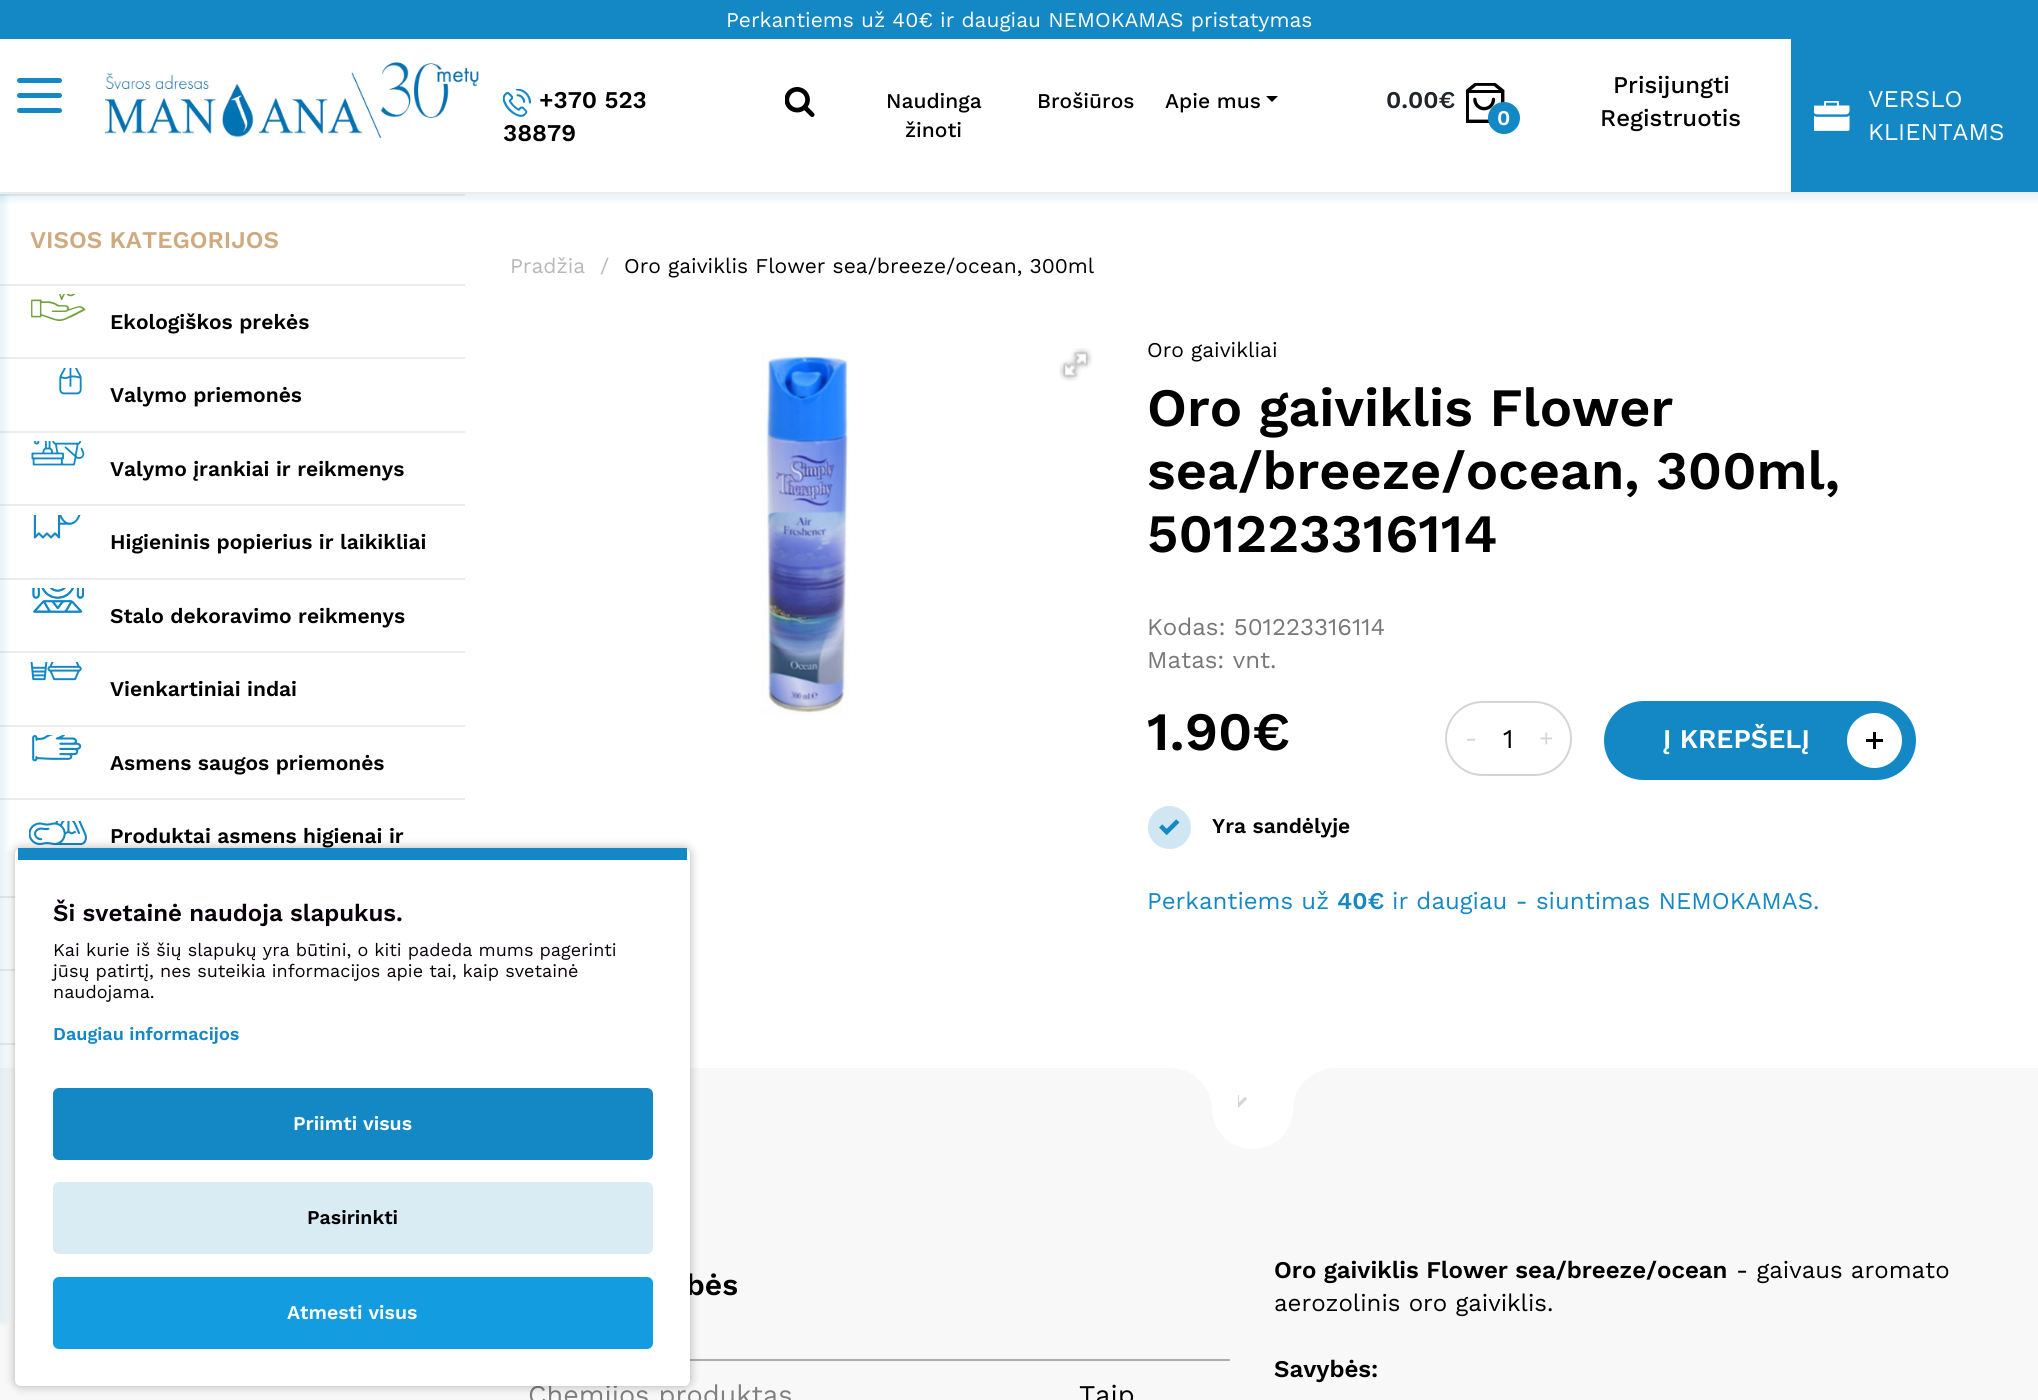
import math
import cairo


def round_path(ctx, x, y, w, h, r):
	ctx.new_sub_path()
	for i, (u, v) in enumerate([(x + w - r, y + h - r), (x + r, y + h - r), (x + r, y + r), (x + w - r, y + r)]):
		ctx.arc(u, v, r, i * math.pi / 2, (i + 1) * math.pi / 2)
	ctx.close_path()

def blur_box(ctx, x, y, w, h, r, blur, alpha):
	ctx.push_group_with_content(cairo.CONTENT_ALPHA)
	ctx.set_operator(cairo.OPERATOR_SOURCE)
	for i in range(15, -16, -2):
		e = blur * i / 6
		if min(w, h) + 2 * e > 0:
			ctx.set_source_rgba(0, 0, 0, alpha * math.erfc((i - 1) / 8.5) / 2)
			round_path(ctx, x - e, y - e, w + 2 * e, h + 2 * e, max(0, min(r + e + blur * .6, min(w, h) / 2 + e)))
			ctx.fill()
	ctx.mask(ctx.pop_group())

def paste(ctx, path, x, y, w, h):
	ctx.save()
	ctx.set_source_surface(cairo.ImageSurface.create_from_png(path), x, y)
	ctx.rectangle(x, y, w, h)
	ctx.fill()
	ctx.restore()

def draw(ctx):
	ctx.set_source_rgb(1, 1, 1)
	ctx.paint()
	ctx.set_source_rgb(0.922, 0.922, 0.922)
	ctx.rectangle(0, 194, 465, 2)
	ctx.rectangle(0, 284, 465, 2)
	ctx.rectangle(0, 357, 465, 2)
	ctx.rectangle(0, 431, 465, 2)
	ctx.rectangle(0, 504, 465, 2)
	ctx.rectangle(0, 578, 465, 2)
	ctx.rectangle(0, 651, 465, 2)
	ctx.rectangle(0, 725, 465, 2)
	ctx.rectangle(0, 798, 465, 2)
	ctx.rectangle(0, 896, 15, 2)
	ctx.rectangle(0, 969, 15, 2)
	ctx.rectangle(0, 1043, 15, 2)
	ctx.fill()
	ctx.set_source_rgb(0.969, 0.969, 0.969)
	ctx.rectangle(0, 1068, 2038, 332)
	ctx.fill()
	ctx.set_source_rgb(0.075, 0.533, 0.769)
	blur_box(ctx, -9, 66, 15, 1257, 0, 3, 0.1)
	blur_box(ctx, -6, -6, 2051, 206, 0, 3, 0.1)
	ctx.set_source_rgb(1, 1, 1)
	ctx.rectangle(0, 39, 1791, 153)
	ctx.fill()
	ctx.set_source_rgb(0.922, 0.922, 0.922)
	ctx.rectangle(0, 192, 2038, 2)
	ctx.fill()
	ctx.set_source_rgb(0.075, 0.533, 0.769)
	ctx.rectangle(0, 0, 2038, 39)
	ctx.fill()
	ctx.select_font_face('Work Sans')
	ctx.set_font_size(21)
	ctx.set_source_rgb(1, 1, 1)
	ctx.move_to(726, 27)
	ctx.show_text('Perkantiems už 40€ ir daugiau NEMOKAMAS pristatymas')
	ctx.set_source_rgb(0.075, 0.533, 0.769)
	round_path(ctx, 17, 78, 45, 5, 2.5)
	ctx.fill()
	round_path(ctx, 17, 93, 45, 5, 2.5)
	ctx.fill()
	round_path(ctx, 17, 108, 45, 5, 2.5)
	ctx.fill()
	paste(ctx, 'media/1.png', 105, 62, 374, 76)
	paste(ctx, 'media/2.png', 503, 89, 28, 28)
	ctx.select_font_face('Work Sans SemiBold')
	ctx.set_font_size(24)
	ctx.set_source_rgb(0, 0, 0)
	ctx.move_to(539, 108)
	ctx.show_text('+370 523')
	ctx.move_to(503, 141)
	ctx.show_text('38879')
	paste(ctx, 'media/3.png', 785, 87, 30, 30)
	ctx.select_font_face('Work Sans Medium')
	ctx.set_font_size(21)
	for x, y, s in [
		(886, 108, 'Naudinga'),
		(905, 137, 'žinoti'),
		(1037, 108, 'Brošiūros'),
		(1165, 108, 'Apie mus'),
	]:
		ctx.move_to(x, y)
		ctx.show_text(s)
	ctx.new_path()
	ctx.move_to(1266, 96)
	ctx.line_to(1278, 96)
	ctx.line_to(1272, 102)
	ctx.close_path()
	ctx.fill()
	ctx.select_font_face('Work Sans SemiBold')
	ctx.set_font_size(24)
	ctx.set_source_rgb(0.129, 0.145, 0.161)
	ctx.move_to(1386, 108)
	ctx.show_text('0.00€')
	paste(ctx, 'media/4.png', 1466, 83, 39, 40)
	ctx.set_source_rgb(0.075, 0.533, 0.769)
	ctx.arc(1504, 118, 16, 0, 2 * math.pi)
	ctx.fill()
	ctx.set_font_size(21)
	ctx.set_source_rgb(1, 1, 1)
	ctx.move_to(1497, 125)
	ctx.show_text('0')
	ctx.select_font_face('Work Sans Medium')
	ctx.set_font_size(24)
	ctx.set_source_rgb(0, 0, 0)
	ctx.move_to(1613, 93)
	ctx.show_text('Prisijungti')
	ctx.move_to(1600, 126)
	ctx.show_text('Registruotis')
	ctx.set_source_rgb(0.075, 0.533, 0.769)
	ctx.rectangle(1791, 39, 247, 153)
	ctx.fill()
	ctx.select_font_face('Work Sans')
	ctx.set_source_rgb(1, 1, 1)
	ctx.move_to(1868, 107)
	ctx.show_text('VERSLO')
	paste(ctx, 'media/5.png', 1814, 101, 36, 30)
	ctx.move_to(1868, 140)
	ctx.show_text('KLIENTAMS')
	ctx.select_font_face('Work Sans SemiBold')
	ctx.set_source_rgb(0.816, 0.667, 0.498)
	ctx.move_to(30, 248)
	ctx.show_text('VISOS KATEGORIJOS')
	paste(ctx, 'media/6.png', 31, 294, 55, 27)
	ctx.set_font_size(21)
	ctx.set_source_rgb(0, 0, 0)
	ctx.move_to(110, 329)
	ctx.show_text('Ekologiškos prekės')
	paste(ctx, 'media/7.png', 59, 368, 23, 27)
	ctx.move_to(110, 402)
	ctx.show_text('Valymo priemonės')
	paste(ctx, 'media/8.png', 31, 441, 54, 25)
	ctx.move_to(110, 476)
	ctx.show_text('Valymo įrankiai ir reikmenys')
	paste(ctx, 'media/9.png', 33, 515, 48, 24)
	ctx.move_to(110, 549)
	ctx.show_text('Higieninis popierius ir laikikliai')
	paste(ctx, 'media/10.png', 32, 588, 52, 25)
	ctx.move_to(110, 623)
	ctx.show_text('Stalo dekoravimo reikmenys')
	paste(ctx, 'media/11.png', 30, 662, 52, 19)
	ctx.move_to(110, 696)
	ctx.show_text('Vienkartiniai indai')
	paste(ctx, 'media/12.png', 32, 735, 50, 27)
	ctx.move_to(110, 770)
	ctx.show_text('Asmens saugos priemonės')
	paste(ctx, 'media/13.png', 29, 821, 58, 25)
	ctx.move_to(110, 843)
	ctx.show_text('Produktai asmens higienai ir')
	ctx.select_font_face('Work Sans')
	ctx.set_source_rgb(0.722, 0.722, 0.722)
	ctx.move_to(510, 273)
	ctx.show_text('Pradžia')
	ctx.move_to(600, 273)
	ctx.show_text('/')
	ctx.set_source_rgb(0, 0, 0)
	ctx.move_to(624, 273)
	ctx.show_text('Oro gaiviklis Flower sea/breeze/ocean, 300ml')
	paste(ctx, 'media/14.png', 761, 352, 88, 363)
	paste(ctx, 'media/15.png', 1059, 348, 33, 33)
	ctx.move_to(1147, 357)
	ctx.show_text('Oro gaivikliai')
	ctx.select_font_face('Work Sans SemiBold')
	ctx.set_font_size(54)
	for x, y, s in [
		(1147, 426, 'Oro gaiviklis Flower'),
		(1147, 489, 'sea/breeze/ocean, 300ml,'),
		(1147, 552, '501223316114'),
	]:
		ctx.move_to(x, y)
		ctx.show_text(s)
	ctx.select_font_face('Work Sans')
	ctx.set_font_size(24)
	ctx.set_source_rgb(0.471, 0.471, 0.471)
	ctx.move_to(1147, 635)
	ctx.show_text('Kodas: 501223316114')
	ctx.move_to(1147, 668)
	ctx.show_text('Matas: vnt.')
	ctx.select_font_face('Work Sans SemiBold')
	ctx.set_font_size(54)
	ctx.set_source_rgb(0, 0, 0)
	ctx.move_to(1147, 750)
	ctx.show_text('1.90€')
	round_path(ctx, 1446, 702, 125, 73, 36.5)
	ctx.set_source_rgb(0.835, 0.835, 0.835)
	ctx.stroke()
	ctx.select_font_face('Work Sans')
	ctx.set_font_size(24)
	ctx.move_to(1465, 746)
	ctx.show_text('-')
	ctx.set_font_size(27)
	ctx.set_source_rgb(0, 0, 0)
	ctx.move_to(1503, 748)
	ctx.show_text('1')
	ctx.set_font_size(24)
	ctx.set_source_rgb(0.835, 0.835, 0.835)
	ctx.move_to(1539, 746)
	ctx.show_text('+')
	ctx.set_source_rgb(0.075, 0.533, 0.769)
	round_path(ctx, 1605, 702, 310, 77, 38.5)
	ctx.fill_preserve()
	ctx.stroke()
	ctx.select_font_face('Work Sans SemiBold')
	ctx.set_font_size(27)
	ctx.set_source_rgb(1, 1, 1)
	ctx.move_to(1663, 748)
	ctx.show_text('Į KREPŠELĮ')
	ctx.new_path()
	ctx.arc(1874.5, 740.5, 27.5, 0, 2 * math.pi)
	ctx.fill()
	ctx.set_source_rgb(0, 0, 0)
	ctx.rectangle(1873, 732, 3, 17)
	ctx.fill()
	ctx.rectangle(1866, 739, 17, 3)
	ctx.fill()
	ctx.set_source_rgb(0.816, 0.906, 0.953)
	ctx.arc(1169.5, 827.5, 21.5, 0, 2 * math.pi)
	ctx.fill()
	ctx.set_font_size(21)
	ctx.set_source_rgb(0, 0, 0)
	ctx.move_to(1212, 833)
	ctx.show_text('Yra sandėlyje')
	paste(ctx, 'media/16.png', 1159, 819, 21, 17)
	ctx.select_font_face('Work Sans')
	ctx.set_font_size(24)
	ctx.set_source_rgb(0.075, 0.533, 0.769)
	ctx.move_to(1147, 909)
	ctx.show_text('Perkantiems už')
	ctx.select_font_face('Work Sans SemiBold')
	ctx.move_to(1337, 909)
	ctx.show_text('40€')
	ctx.select_font_face('Work Sans')
	ctx.move_to(1392, 909)
	ctx.show_text('ir daugiau - siuntimas NEMOKAMAS.')
	ctx.set_source_rgb(1, 1, 1)
	ctx.rectangle(1170, 1068, 165, 42)
	ctx.fill()
	ctx.set_source_rgb(0.969, 0.969, 0.969)
	ctx.new_path()
	ctx.move_to(1170, 1068)
	ctx.curve_to(1193, 1068, 1212, 1087, 1212, 1110)
	ctx.line_to(1212, 1149)
	ctx.line_to(1170, 1149)
	ctx.close_path()
	ctx.fill()
	ctx.rectangle(1212, 1108, 81, 2)
	ctx.fill()
	ctx.set_source_rgb(1, 1, 1)
	ctx.new_path()
	ctx.move_to(1212, 1068)
	ctx.line_to(1293, 1068)
	ctx.line_to(1293, 1108.5)
	ctx.curve_to(1293, 1131, 1275, 1149, 1252.5, 1149)
	ctx.curve_to(1230, 1149, 1212, 1131, 1212, 1108.5)
	ctx.close_path()
	ctx.fill()
	paste(ctx, 'media/17.png', 1238, 1095, 9, 13)
	ctx.set_source_rgb(0.969, 0.969, 0.969)
	ctx.new_path()
	ctx.move_to(1335, 1068)
	ctx.line_to(1335, 1149)
	ctx.line_to(1293, 1149)
	ctx.line_to(1293, 1110)
	ctx.curve_to(1293, 1087, 1312, 1068, 1335, 1068)
	ctx.close_path()
	ctx.fill()
	ctx.select_font_face('Work Sans SemiBold')
	ctx.set_font_size(30)
	ctx.set_source_rgb(0, 0, 0)
	ctx.move_to(686, 1295)
	ctx.show_text('bės')
	ctx.set_source_rgb(0.678, 0.678, 0.678)
	ctx.rectangle(690, 1359, 540, 2)
	ctx.fill()
	ctx.select_font_face('Work Sans')
	ctx.set_font_size(27)
	ctx.set_source_rgb(0.502, 0.502, 0.502)
	ctx.move_to(528, 1404)
	ctx.show_text('Chemijos produktas')
	ctx.set_source_rgb(0, 0, 0)
	ctx.move_to(1079, 1404)
	ctx.show_text('Taip')
	ctx.select_font_face('Work Sans SemiBold')
	ctx.set_font_size(24)
	ctx.move_to(1274, 1278)
	ctx.show_text('Oro gaiviklis Flower sea/breeze/ocean')
	ctx.select_font_face('Work Sans')
	ctx.move_to(1736, 1278)
	ctx.show_text('- gaivaus aromato')
	ctx.move_to(1274, 1311)
	ctx.show_text('aerozolinis oro gaiviklis.')
	ctx.select_font_face('Work Sans SemiBold')
	ctx.move_to(1274, 1377)
	ctx.show_text('Savybės:')
	ctx.set_source_rgb(0, 0, 0)
	blur_box(ctx, 15, 848, 675, 538, 6, 5, 0.3)
	ctx.set_source_rgb(1, 1, 1)
	round_path(ctx, 15, 848, 675, 538, 6)
	ctx.fill()
	ctx.set_source_rgb(0.075, 0.533, 0.769)
	ctx.rectangle(18, 848, 669, 12)
	ctx.fill()
	ctx.set_source_rgb(0.039, 0.004, 0.039)
	ctx.move_to(53, 921)
	ctx.show_text('Ši svetainė naudoja slapukus.')
	ctx.select_font_face('Work Sans')
	ctx.set_font_size(18)
	for x, y, s in [
		(53, 956, 'Kai kurie iš šių slapukų yra būtini, o kiti padeda mums pagerinti'),
		(53, 977, 'jūsų patirtį, nes suteikia informacijos apie tai, kaip svetainė'),
		(53, 998, 'naudojama.'),
	]:
		ctx.move_to(x, y)
		ctx.show_text(s)
	ctx.select_font_face('Work Sans SemiBold')
	ctx.set_source_rgb(0.075, 0.533, 0.769)
	ctx.move_to(53, 1040)
	ctx.show_text('Daugiau informacijos')
	round_path(ctx, 53, 1088, 600, 72, 6)
	ctx.fill()
	ctx.set_font_size(19.5)
	ctx.set_source_rgb(1, 1, 1)
	ctx.move_to(293, 1130)
	ctx.show_text('Priimti visus')
	ctx.set_source_rgb(0.855, 0.922, 0.953)
	round_path(ctx, 53, 1182, 600, 72, 6)
	ctx.fill()
	ctx.set_source_rgb(0, 0, 0)
	ctx.move_to(307, 1224)
	ctx.show_text('Pasirinkti')
	ctx.set_source_rgb(0.078, 0.612, 0.878)
	round_path(ctx, 53, 1277, 600, 72, 6)
	ctx.fill()
	ctx.set_source_rgb(1, 1, 1)
	ctx.move_to(287, 1319)
	ctx.show_text('Atmesti visus')


surface = cairo.ImageSurface(cairo.FORMAT_RGB24, 2038, 1400)
ctx = cairo.Context(surface)
options = cairo.FontOptions()
options.set_hint_metrics(cairo.HINT_METRICS_OFF)
options.set_hint_style(cairo.HINT_STYLE_NONE)
ctx.set_font_options(options)
ctx.set_miter_limit(4)
draw(ctx)
surface.write_to_png('image.png')
